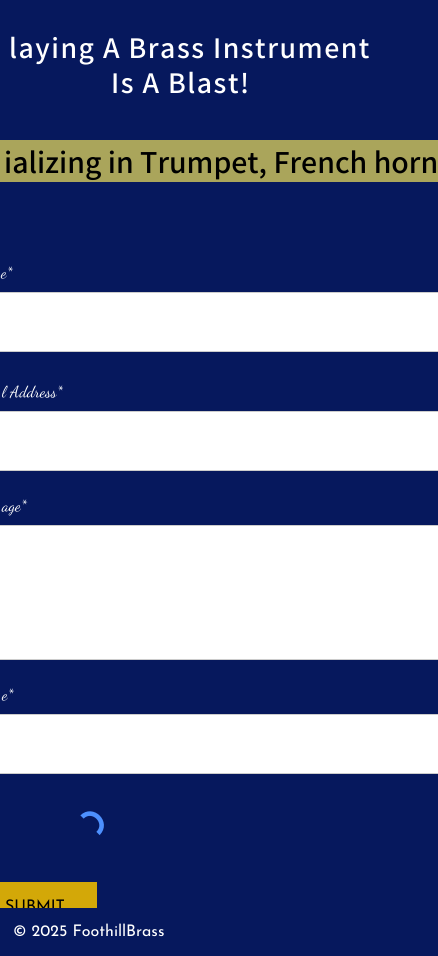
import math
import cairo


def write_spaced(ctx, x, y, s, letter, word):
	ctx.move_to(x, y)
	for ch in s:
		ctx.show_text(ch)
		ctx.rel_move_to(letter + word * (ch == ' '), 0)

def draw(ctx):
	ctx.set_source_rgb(0.027, 0.094, 0.365)
	ctx.paint()
	ctx.select_font_face('Assistant SemiBold')
	ctx.set_font_size(30)
	ctx.set_source_rgb(1, 1, 1)
	write_spaced(ctx, 9, 58, 'laying A Brass Instrument', 1.5, 0)
	write_spaced(ctx, 111, 93, 'Is A Blast!', 1.5, 0)
	ctx.set_source_rgb(0.667, 0.647, 0.357)
	ctx.rectangle(0, 140, 438, 42)
	ctx.fill()
	ctx.set_font_size(32)
	ctx.set_source_rgb(0, 0, 0)
	ctx.move_to(4, 173)
	ctx.show_text('ializing in Trumpet, French horn')
	ctx.select_font_face('Dancing Script')
	ctx.set_font_size(16)
	ctx.set_source_rgb(1, 1, 1)
	ctx.move_to(1, 278)
	ctx.show_text('e*')
	ctx.rectangle(-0.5, 292.5, 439, 59)
	ctx.fill_preserve()
	ctx.set_source_rgb(0.8, 0.8, 0.8)
	ctx.set_line_width(1)
	ctx.stroke()
	ctx.set_source_rgb(1, 1, 1)
	ctx.move_to(2, 397)
	ctx.show_text('l Address*')
	ctx.rectangle(-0.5, 411.5, 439, 59)
	ctx.fill_preserve()
	ctx.set_source_rgb(0.8, 0.8, 0.8)
	ctx.stroke()
	ctx.set_source_rgb(1, 1, 1)
	ctx.move_to(2, 511)
	ctx.show_text('age*')
	ctx.rectangle(-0.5, 525.5, 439, 134)
	ctx.fill_preserve()
	ctx.set_source_rgb(0.8, 0.8, 0.8)
	ctx.stroke()
	ctx.set_source_rgb(1, 1, 1)
	ctx.move_to(2, 700)
	ctx.show_text('e*')
	ctx.rectangle(-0.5, 714.5, 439, 59)
	ctx.fill_preserve()
	ctx.set_source_rgb(0.8, 0.8, 0.8)
	ctx.stroke()
	ctx.new_path()
	ctx.move_to(82, 817)
	ctx.curve_to(92.5, 806.5, 109, 822.5, 98, 833.5)
	ctx.set_source_rgb(0.302, 0.565, 0.996)
	ctx.set_line_width(4.6)
	ctx.stroke()
	ctx.set_source_rgb(0.827, 0.659, 0.035)
	ctx.rectangle(0, 882, 97, 26)
	ctx.fill()
	ctx.select_font_face('Josefin Sans')
	ctx.set_source_rgb(0, 0, 0)
	ctx.move_to(5, 911)
	ctx.show_text('SUBMIT')
	ctx.set_source_rgb(0.027, 0.094, 0.365)
	ctx.rectangle(5, 908, 57, 4)
	ctx.fill()
	ctx.set_source_rgb(1, 1, 1)
	ctx.move_to(13, 936)
	ctx.show_text('© 2025 FoothillBrass')


surface = cairo.ImageSurface(cairo.FORMAT_RGB24, 438, 956)
ctx = cairo.Context(surface)
options = cairo.FontOptions()
options.set_hint_metrics(cairo.HINT_METRICS_OFF)
options.set_hint_style(cairo.HINT_STYLE_NONE)
ctx.set_font_options(options)
ctx.set_miter_limit(4)
draw(ctx)
surface.write_to_png('image.png')
